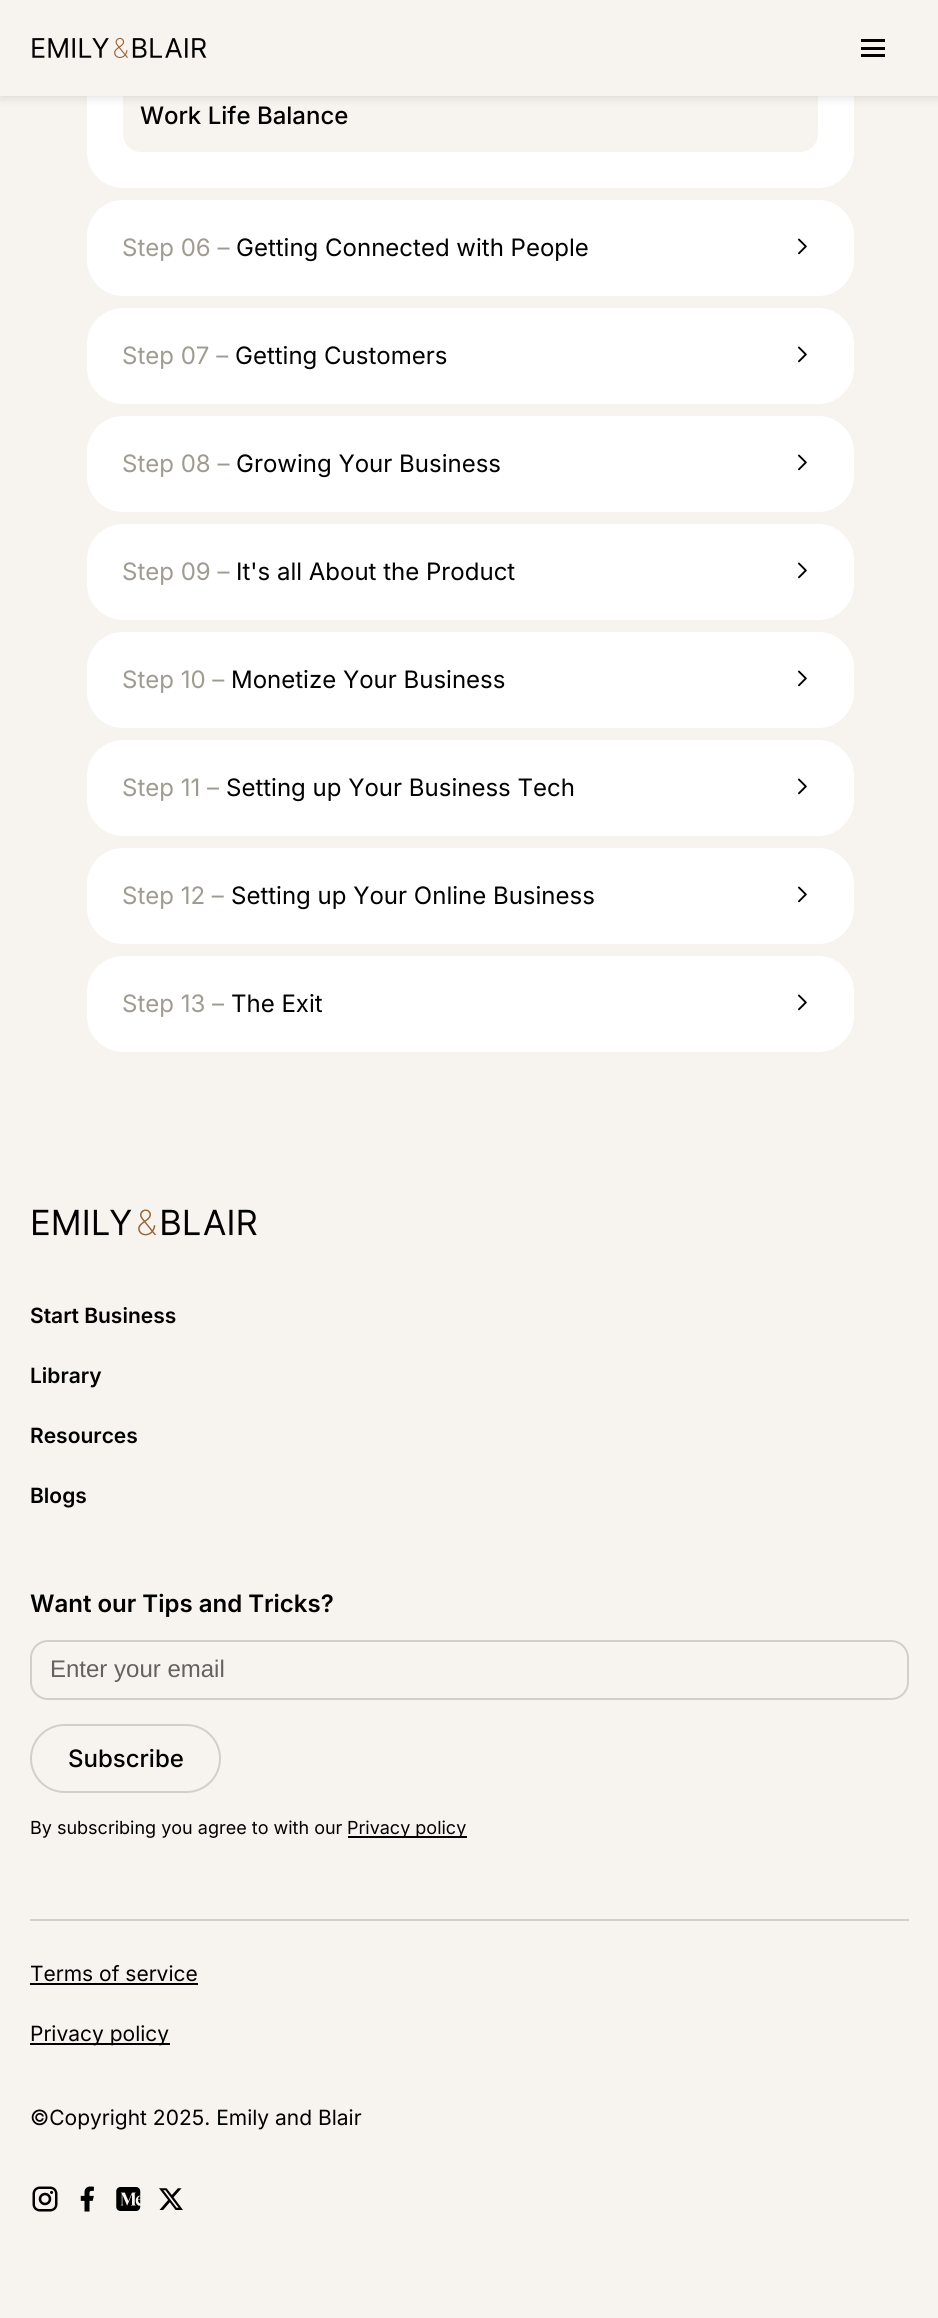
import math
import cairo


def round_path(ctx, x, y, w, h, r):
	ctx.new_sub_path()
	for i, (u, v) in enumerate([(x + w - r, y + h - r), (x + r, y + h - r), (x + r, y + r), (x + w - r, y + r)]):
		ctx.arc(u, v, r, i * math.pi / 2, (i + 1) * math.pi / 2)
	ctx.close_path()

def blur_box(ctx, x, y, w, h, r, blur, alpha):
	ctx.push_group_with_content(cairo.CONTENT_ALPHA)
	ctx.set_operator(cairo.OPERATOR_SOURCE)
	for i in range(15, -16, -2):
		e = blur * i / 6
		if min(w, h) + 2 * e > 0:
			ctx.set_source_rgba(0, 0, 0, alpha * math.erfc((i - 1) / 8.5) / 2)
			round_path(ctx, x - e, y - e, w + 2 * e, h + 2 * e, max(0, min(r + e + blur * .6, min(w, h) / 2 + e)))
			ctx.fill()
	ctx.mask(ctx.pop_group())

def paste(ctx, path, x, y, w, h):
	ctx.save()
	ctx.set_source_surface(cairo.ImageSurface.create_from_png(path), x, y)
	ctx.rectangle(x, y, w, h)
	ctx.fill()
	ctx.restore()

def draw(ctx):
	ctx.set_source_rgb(0.965, 0.957, 0.937)
	ctx.paint()
	ctx.set_source_rgb(1, 1, 1)
	ctx.new_path()
	ctx.move_to(87, -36)
	ctx.line_to(854, -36)
	ctx.line_to(854, 152)
	ctx.curve_to(854, 172, 838, 188, 818, 188)
	ctx.line_to(123, 188)
	ctx.curve_to(103, 188, 87, 172, 87, 152)
	ctx.close_path()
	ctx.fill()
	ctx.set_source_rgb(0.965, 0.957, 0.937)
	round_path(ctx, 123, 80, 695, 72, 18)
	ctx.fill()
	ctx.set_source_rgb(0, 0, 0)
	blur_box(ctx, 0, 3, 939, 96, 0, 4, 0.1)
	ctx.set_source_rgb(0.965, 0.957, 0.937)
	ctx.rectangle(0, 0, 938, 96)
	ctx.fill()
	paste(ctx, 'media/1.png', 32, 37, 175, 21)
	ctx.set_source_rgb(0, 0, 0)
	ctx.rectangle(861, 54, 24, 3)
	ctx.rectangle(861, 39, 24, 3)
	ctx.rectangle(861, 47, 24, 3)
	ctx.fill()
	ctx.select_font_face('Inter Medium')
	ctx.set_font_size(24)
	ctx.move_to(140, 124)
	ctx.show_text('Work Life Balance')
	ctx.set_source_rgb(1, 1, 1)
	round_path(ctx, 87, 200, 767, 96, 36)
	ctx.fill()
	ctx.select_font_face('Inter')
	ctx.set_source_rgb(0.624, 0.608, 0.569)
	ctx.move_to(122, 256)
	ctx.show_text('Step 06 –')
	ctx.set_source_rgb(0, 0, 0)
	ctx.move_to(236, 256)
	ctx.show_text('Getting Connected with People')
	paste(ctx, 'media/2.png', 798, 238, 9, 17)
	ctx.set_source_rgb(1, 1, 1)
	round_path(ctx, 87, 308, 767, 96, 36)
	ctx.fill()
	ctx.set_source_rgb(0.624, 0.608, 0.569)
	ctx.move_to(122, 364)
	ctx.show_text('Step 07 –')
	ctx.set_source_rgb(0, 0, 0)
	ctx.move_to(235, 364)
	ctx.show_text('Getting Customers')
	paste(ctx, 'media/2.png', 798, 346, 9, 17)
	ctx.set_source_rgb(1, 1, 1)
	round_path(ctx, 87, 416, 767, 96, 36)
	ctx.fill()
	ctx.set_source_rgb(0.624, 0.608, 0.569)
	ctx.move_to(122, 472)
	ctx.show_text('Step 08 –')
	ctx.set_source_rgb(0, 0, 0)
	ctx.move_to(236, 472)
	ctx.show_text('Growing Your Business')
	paste(ctx, 'media/2.png', 798, 454, 9, 17)
	ctx.set_source_rgb(1, 1, 1)
	round_path(ctx, 87, 524, 767, 96, 36)
	ctx.fill()
	ctx.set_source_rgb(0.624, 0.608, 0.569)
	ctx.move_to(122, 580)
	ctx.show_text('Step 09 –')
	ctx.set_source_rgb(0, 0, 0)
	ctx.move_to(236, 580)
	ctx.show_text('It\'s all About the Product')
	paste(ctx, 'media/2.png', 798, 562, 9, 17)
	ctx.set_source_rgb(1, 1, 1)
	round_path(ctx, 87, 632, 767, 96, 36)
	ctx.fill()
	ctx.set_source_rgb(0.624, 0.608, 0.569)
	ctx.move_to(122, 688)
	ctx.show_text('Step 10 –')
	ctx.set_source_rgb(0, 0, 0)
	ctx.move_to(231, 688)
	ctx.show_text('Monetize Your Business')
	paste(ctx, 'media/2.png', 798, 670, 9, 17)
	ctx.set_source_rgb(1, 1, 1)
	round_path(ctx, 87, 740, 767, 96, 36)
	ctx.fill()
	ctx.set_source_rgb(0.624, 0.608, 0.569)
	ctx.move_to(122, 796)
	ctx.show_text('Step 11 –')
	ctx.set_source_rgb(0, 0, 0)
	ctx.move_to(226, 796)
	ctx.show_text('Setting up Your Business Tech')
	paste(ctx, 'media/2.png', 798, 778, 9, 17)
	ctx.set_source_rgb(1, 1, 1)
	round_path(ctx, 87, 848, 767, 96, 36)
	ctx.fill()
	ctx.set_source_rgb(0.624, 0.608, 0.569)
	ctx.move_to(122, 904)
	ctx.show_text('Step 12 –')
	ctx.set_source_rgb(0, 0, 0)
	ctx.move_to(231, 904)
	ctx.show_text('Setting up Your Online Business')
	paste(ctx, 'media/2.png', 798, 886, 9, 17)
	ctx.set_source_rgb(1, 1, 1)
	round_path(ctx, 87, 956, 767, 96, 36)
	ctx.fill()
	ctx.set_source_rgb(0.624, 0.608, 0.569)
	ctx.move_to(122, 1012)
	ctx.show_text('Step 13 –')
	ctx.set_source_rgb(0, 0, 0)
	ctx.move_to(231, 1012)
	ctx.show_text('The Exit')
	paste(ctx, 'media/2.png', 798, 994, 9, 17)
	paste(ctx, 'media/3.png', 33, 1209, 224, 27)
	ctx.select_font_face('Inter SemiBold')
	ctx.set_font_size(21)
	for x, y, s in [
		(30, 1323, 'Start Business'),
		(30, 1383, 'Library'),
		(30, 1443, 'Resources'),
		(30, 1503, 'Blogs'),
	]:
		ctx.move_to(x, y)
		ctx.show_text(s)
	ctx.set_font_size(24)
	ctx.move_to(30, 1612)
	ctx.show_text('Want our Tips and Tricks?')
	round_path(ctx, 31, 1641, 877, 58, 17)
	ctx.set_source_rgb(0.82, 0.812, 0.796)
	ctx.stroke()
	ctx.select_font_face('Liberation Sans')
	ctx.set_source_rgb(0.384, 0.384, 0.376)
	ctx.move_to(50, 1677)
	ctx.show_text('Enter your email')
	round_path(ctx, 31, 1725, 189, 67, 33.5)
	ctx.set_source_rgb(0.82, 0.812, 0.796)
	ctx.stroke()
	ctx.select_font_face('Inter Medium')
	ctx.set_source_rgb(0, 0, 0)
	ctx.move_to(68, 1767)
	ctx.show_text('Subscribe')
	ctx.select_font_face('Inter')
	ctx.set_font_size(18)
	ctx.move_to(30, 1834)
	ctx.show_text('By subscribing you agree to with our')
	ctx.rectangle(348, 1836, 119, 2)
	ctx.fill()
	ctx.move_to(347, 1834)
	ctx.show_text('Privacy policy')
	ctx.set_source_rgb(0.82, 0.812, 0.796)
	ctx.rectangle(30, 1919, 879, 2)
	ctx.fill()
	ctx.set_font_size(21)
	ctx.set_source_rgb(0, 0, 0)
	ctx.move_to(30, 1981)
	ctx.show_text('Terms of service')
	ctx.rectangle(30, 1983, 168, 2)
	ctx.fill()
	ctx.rectangle(30, 2043, 140, 2)
	ctx.fill()
	ctx.move_to(30, 2041)
	ctx.show_text('Privacy policy')
	ctx.move_to(30, 2125)
	ctx.show_text('©Copyright 2025. Emily and Blair')
	paste(ctx, 'media/4.png', 32, 2186, 26, 26)
	paste(ctx, 'media/5.png', 80, 2186, 14, 26)
	paste(ctx, 'media/6.png', 116, 2187, 25, 24)
	paste(ctx, 'media/7.png', 159, 2188, 24, 22)


surface = cairo.ImageSurface(cairo.FORMAT_RGB24, 938, 2318)
ctx = cairo.Context(surface)
options = cairo.FontOptions()
options.set_hint_metrics(cairo.HINT_METRICS_OFF)
options.set_hint_style(cairo.HINT_STYLE_NONE)
ctx.set_font_options(options)
ctx.set_miter_limit(4)
draw(ctx)
surface.write_to_png('image.png')
